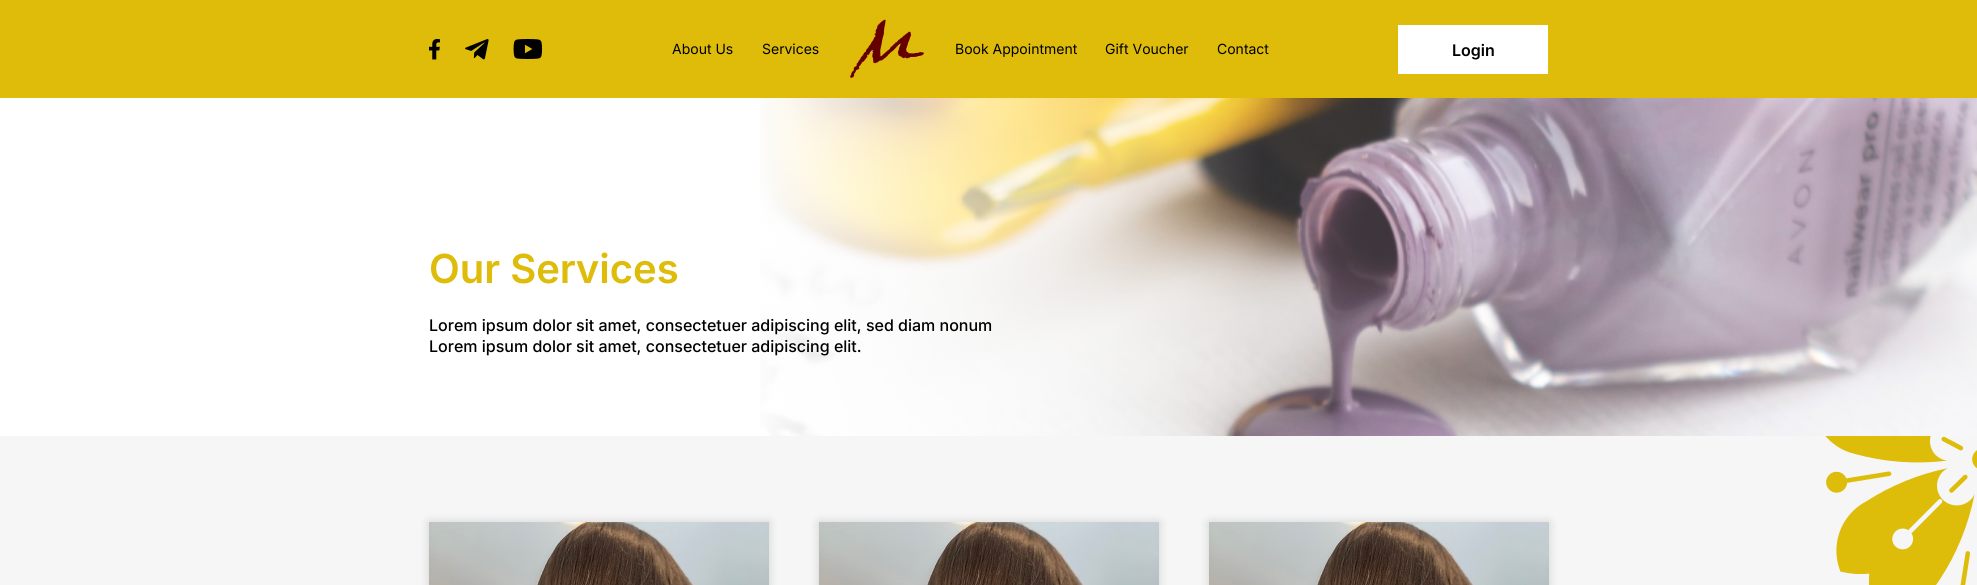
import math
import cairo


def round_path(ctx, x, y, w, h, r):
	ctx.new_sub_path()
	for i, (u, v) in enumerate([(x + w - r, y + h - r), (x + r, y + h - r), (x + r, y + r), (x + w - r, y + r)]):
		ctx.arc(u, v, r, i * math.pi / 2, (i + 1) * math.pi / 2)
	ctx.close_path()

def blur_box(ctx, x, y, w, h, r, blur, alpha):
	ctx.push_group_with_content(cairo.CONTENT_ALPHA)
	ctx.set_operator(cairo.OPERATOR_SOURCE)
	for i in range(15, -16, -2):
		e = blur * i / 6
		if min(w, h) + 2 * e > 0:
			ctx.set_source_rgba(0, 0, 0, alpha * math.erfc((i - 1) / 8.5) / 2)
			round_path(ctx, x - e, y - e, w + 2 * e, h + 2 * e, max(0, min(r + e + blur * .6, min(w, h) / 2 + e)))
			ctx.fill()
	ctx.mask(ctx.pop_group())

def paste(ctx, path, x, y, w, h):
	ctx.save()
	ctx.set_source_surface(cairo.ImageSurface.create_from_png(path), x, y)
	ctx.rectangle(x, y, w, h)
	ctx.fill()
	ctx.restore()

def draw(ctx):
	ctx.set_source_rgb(1, 1, 1)
	ctx.paint()
	ctx.set_source_rgb(0.871, 0.737, 0.039)
	ctx.rectangle(0, 0, 1977, 98)
	ctx.fill()
	paste(ctx, 'media/1.png', 429, 39, 11, 21)
	paste(ctx, 'media/2.png', 465, 39, 24, 21)
	paste(ctx, 'media/3.png', 513, 39, 30, 20)
	ctx.select_font_face('Inter')
	ctx.set_font_size(14)
	ctx.set_source_rgb(0, 0, 0)
	ctx.move_to(672, 54)
	ctx.show_text('About Us')
	ctx.move_to(762, 54)
	ctx.show_text('Services')
	paste(ctx, 'media/4.png', 850, 19, 74, 59)
	for x, y, s in [
		(955, 54, 'Book Appointment'),
		(1105, 54, 'Gift Voucher'),
		(1217, 54, 'Contact'),
	]:
		ctx.move_to(x, y)
		ctx.show_text(s)
	ctx.set_source_rgb(1, 1, 1)
	ctx.rectangle(1398, 25, 150, 49)
	ctx.fill()
	ctx.select_font_face('Inter SemiBold')
	ctx.set_font_size(16)
	ctx.set_source_rgb(0, 0, 0)
	ctx.move_to(1452, 56)
	ctx.show_text('Login')
	paste(ctx, 'media/5.png', 760, 98, 1217, 338)
	ctx.set_font_size(40)
	ctx.set_source_rgb(0.871, 0.737, 0.039)
	ctx.move_to(429, 283)
	ctx.show_text('Our Services')
	ctx.select_font_face('Inter Medium')
	ctx.set_font_size(16)
	ctx.set_source_rgb(0, 0, 0)
	ctx.move_to(429, 331)
	ctx.show_text('Lorem ipsum dolor sit amet, consectetuer adipiscing elit, sed diam nonum')
	ctx.move_to(429, 352)
	ctx.show_text('Lorem ipsum dolor sit amet, consectetuer adipiscing elit.')
	ctx.set_source_rgb(0.961, 0.961, 0.961)
	ctx.rectangle(0, 436, 1977, 149)
	ctx.fill()
	ctx.set_source_rgb(0, 0, 0)
	blur_box(ctx, 429, 522, 340, 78, 0, 5, 0.15)
	paste(ctx, 'media/6.png', 429, 522, 340, 63)
	blur_box(ctx, 819, 522, 340, 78, 0, 5, 0.15)
	paste(ctx, 'media/7.png', 819, 522, 340, 63)
	blur_box(ctx, 1209, 522, 340, 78, 0, 5, 0.15)
	paste(ctx, 'media/7.png', 1209, 522, 340, 63)
	paste(ctx, 'media/8.png', 1825, 436, 152, 149)


surface = cairo.ImageSurface(cairo.FORMAT_RGB24, 1977, 585)
ctx = cairo.Context(surface)
options = cairo.FontOptions()
options.set_hint_metrics(cairo.HINT_METRICS_OFF)
options.set_hint_style(cairo.HINT_STYLE_NONE)
ctx.set_font_options(options)
ctx.set_miter_limit(4)
draw(ctx)
surface.write_to_png('image.png')
